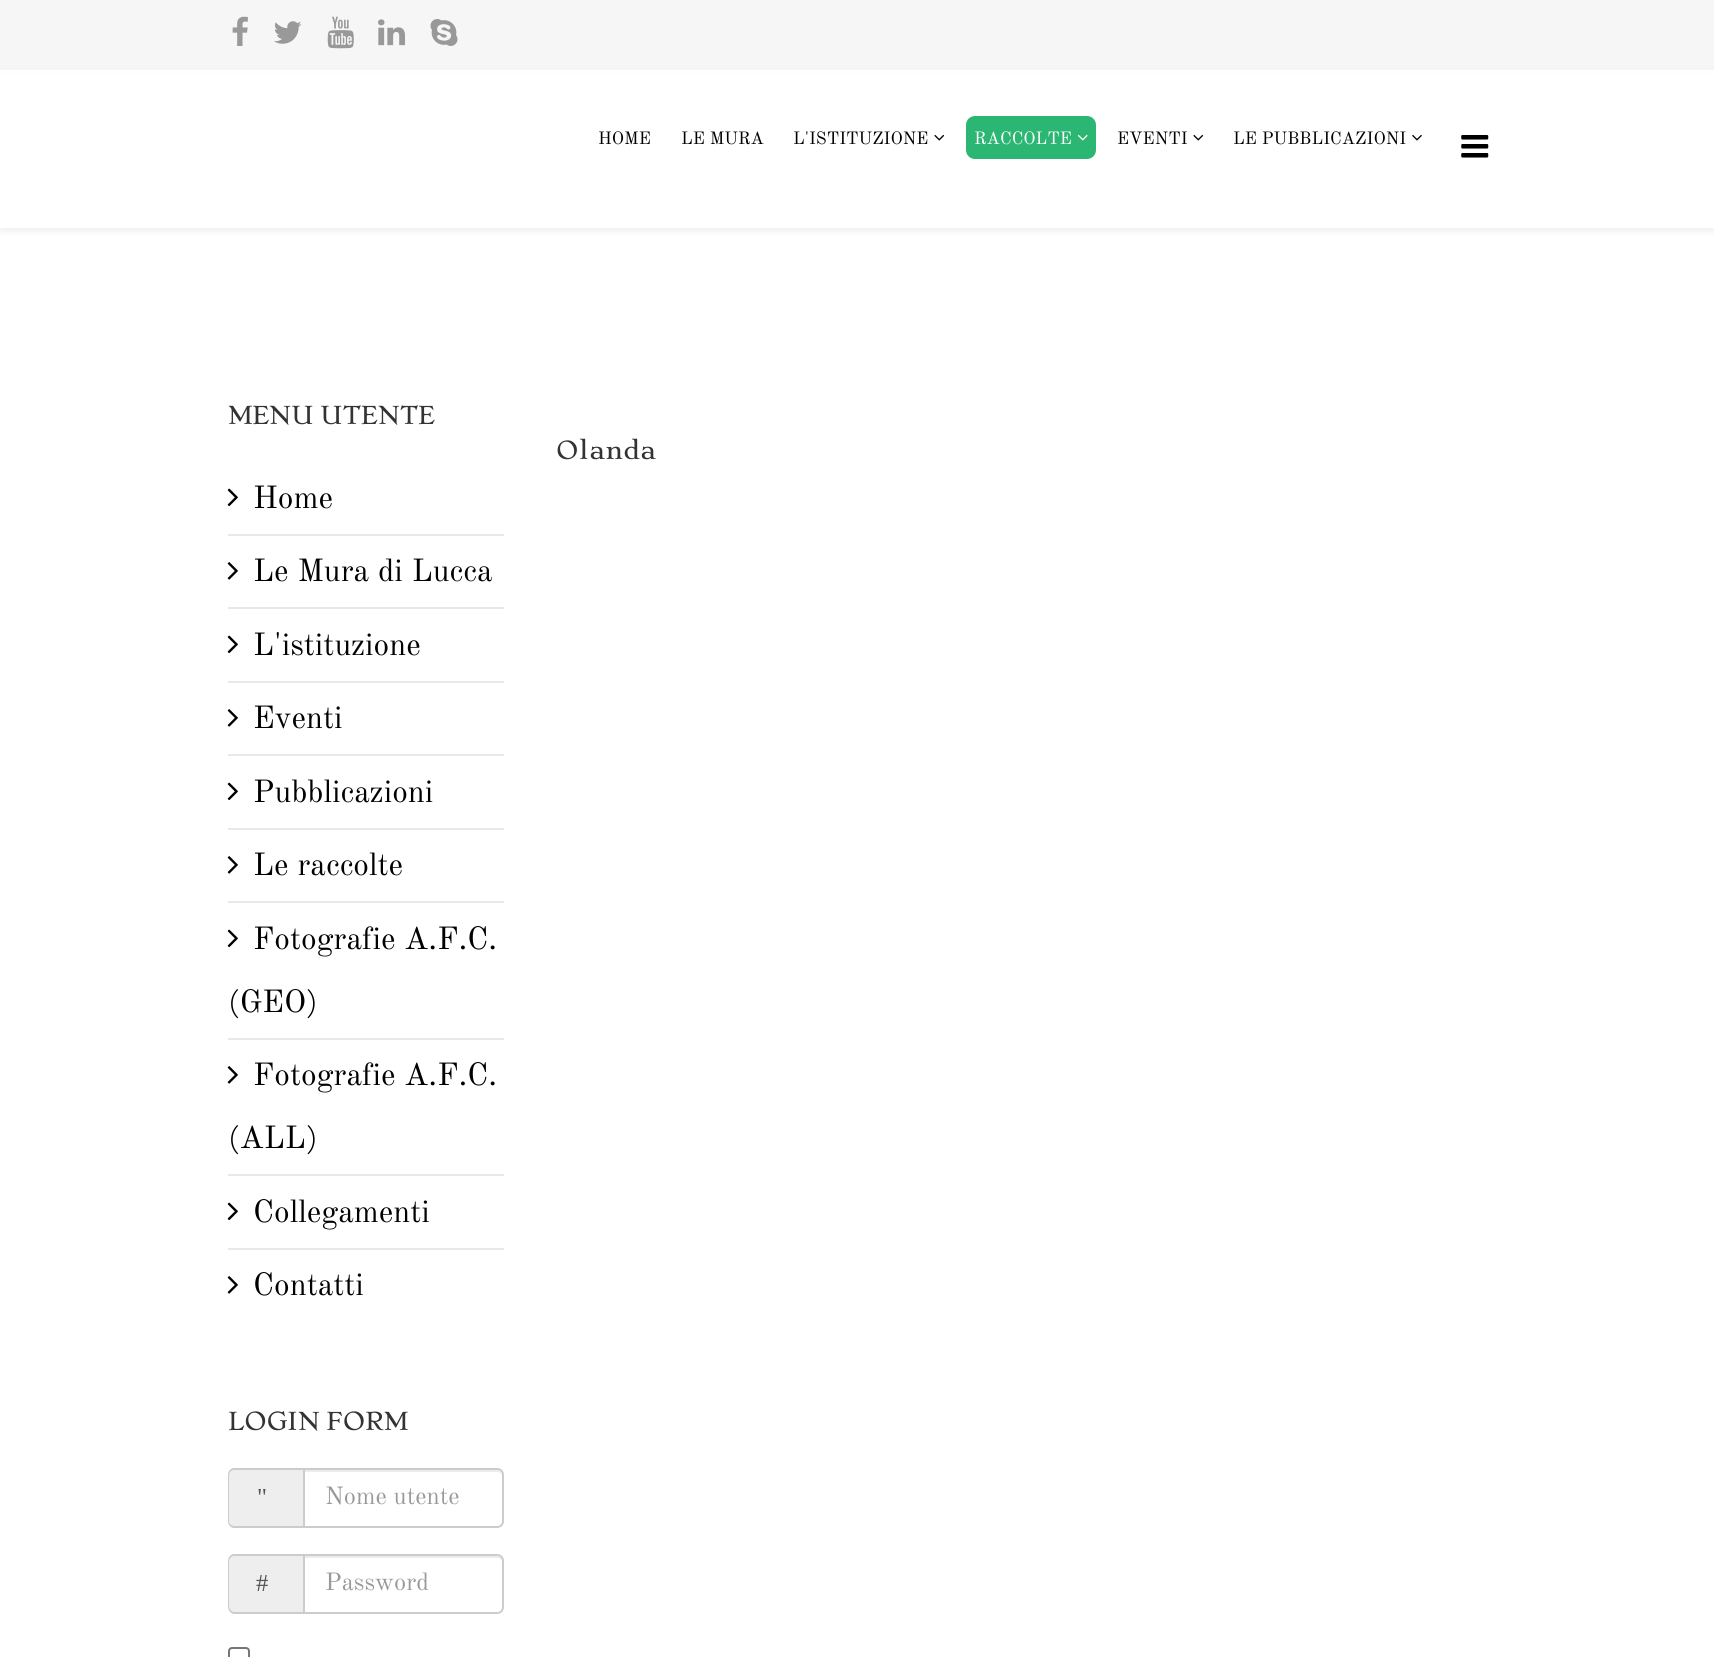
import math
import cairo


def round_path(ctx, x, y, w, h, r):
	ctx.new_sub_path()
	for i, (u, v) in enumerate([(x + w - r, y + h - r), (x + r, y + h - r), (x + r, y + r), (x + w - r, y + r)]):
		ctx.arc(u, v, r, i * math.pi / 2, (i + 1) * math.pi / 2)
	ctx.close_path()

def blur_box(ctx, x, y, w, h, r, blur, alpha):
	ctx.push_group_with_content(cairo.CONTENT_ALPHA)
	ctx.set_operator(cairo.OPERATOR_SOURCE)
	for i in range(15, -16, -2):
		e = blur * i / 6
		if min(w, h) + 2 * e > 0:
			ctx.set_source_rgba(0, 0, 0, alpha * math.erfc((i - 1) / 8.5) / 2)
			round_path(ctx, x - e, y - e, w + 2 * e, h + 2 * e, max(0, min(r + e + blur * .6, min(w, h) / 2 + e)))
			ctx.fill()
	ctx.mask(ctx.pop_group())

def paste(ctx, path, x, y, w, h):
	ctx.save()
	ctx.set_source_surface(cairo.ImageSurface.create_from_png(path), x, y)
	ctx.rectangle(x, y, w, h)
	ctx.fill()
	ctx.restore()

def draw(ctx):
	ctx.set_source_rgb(1, 1, 1)
	ctx.paint()
	ctx.set_source_rgb(0.961, 0.961, 0.961)
	ctx.rectangle(0, 0, 1714, 70)
	ctx.fill()
	paste(ctx, 'media/1.png', 232, 16, 16, 30)
	paste(ctx, 'media/2.png', 274, 21, 28, 23)
	paste(ctx, 'media/3.png', 327, 16, 27, 33)
	paste(ctx, 'media/4.png', 378, 19, 27, 27)
	paste(ctx, 'media/5.png', 430, 19, 28, 27)
	ctx.set_source_rgb(0, 0, 0)
	blur_box(ctx, 0, 75, 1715, 158, 0, 2.5, 0.05)
	ctx.set_source_rgb(1, 1, 1)
	ctx.rectangle(0, 73, 1714, 155)
	ctx.fill()
	ctx.select_font_face('Old Standard TT')
	ctx.set_font_size(17.5)
	ctx.set_source_rgb(0, 0, 0)
	for x, y, s in [
		(598, 144, 'HOME'),
		(681, 144, 'LE MURA'),
		(793, 144, 'L\'ISTITUZIONE'),
	]:
		ctx.move_to(x, y)
		ctx.show_text(s)
	paste(ctx, 'media/6.png', 934, 134, 11, 7)
	ctx.set_source_rgb(0.169, 0.714, 0.451)
	round_path(ctx, 966, 116, 130, 43, 9)
	ctx.fill()
	ctx.set_source_rgb(1, 1, 1)
	ctx.move_to(974, 144)
	ctx.show_text('RACCOLTE')
	paste(ctx, 'media/7.png', 1077, 134, 11, 7)
	ctx.set_source_rgb(0, 0, 0)
	ctx.move_to(1117, 144)
	ctx.show_text('EVENTI')
	paste(ctx, 'media/6.png', 1193, 134, 11, 7)
	ctx.move_to(1233, 144)
	ctx.show_text('LE PUBBLICAZIONI')
	paste(ctx, 'media/8.png', 1412, 134, 10, 7)
	paste(ctx, 'media/9.png', 1461, 135, 28, 23)
	ctx.select_font_face('Stoke Light')
	ctx.set_font_size(24.5)
	ctx.set_source_rgb(0.2, 0.2, 0.2)
	ctx.move_to(228, 424)
	ctx.show_text('MENU UTENTE')
	ctx.set_source_rgb(0.91, 0.91, 0.91)
	ctx.rectangle(228, 534, 276, 2)
	ctx.fill()
	paste(ctx, 'media/10.png', 227, 488, 11, 19)
	ctx.select_font_face('Old Standard TT')
	ctx.set_font_size(31.5)
	ctx.set_source_rgb(0, 0, 0)
	ctx.move_to(253, 508)
	ctx.show_text('Home')
	ctx.set_source_rgb(0.91, 0.91, 0.91)
	ctx.rectangle(228, 607, 276, 2)
	ctx.fill()
	paste(ctx, 'media/11.png', 227, 562, 11, 18)
	ctx.set_source_rgb(0, 0, 0)
	ctx.move_to(253, 581)
	ctx.show_text('Le Mura di Lucca')
	ctx.set_source_rgb(0.91, 0.91, 0.91)
	ctx.rectangle(228, 681, 276, 2)
	ctx.fill()
	paste(ctx, 'media/12.png', 227, 635, 11, 19)
	ctx.set_source_rgb(0, 0, 0)
	ctx.move_to(253, 655)
	ctx.show_text('L\'istituzione')
	ctx.set_source_rgb(0.91, 0.91, 0.91)
	ctx.rectangle(228, 754, 276, 2)
	ctx.fill()
	paste(ctx, 'media/11.png', 227, 709, 11, 18)
	ctx.set_source_rgb(0, 0, 0)
	ctx.move_to(253, 728)
	ctx.show_text('Eventi')
	ctx.set_source_rgb(0.91, 0.91, 0.91)
	ctx.rectangle(228, 828, 276, 2)
	ctx.fill()
	paste(ctx, 'media/12.png', 227, 782, 11, 19)
	ctx.set_source_rgb(0, 0, 0)
	ctx.move_to(253, 802)
	ctx.show_text('Pubblicazioni')
	ctx.set_source_rgb(0.91, 0.91, 0.91)
	ctx.rectangle(228, 901, 276, 2)
	ctx.fill()
	paste(ctx, 'media/11.png', 227, 856, 11, 18)
	ctx.set_source_rgb(0, 0, 0)
	ctx.move_to(253, 875)
	ctx.show_text('Le raccolte')
	ctx.set_source_rgb(0.91, 0.91, 0.91)
	ctx.rectangle(228, 1038, 276, 2)
	ctx.fill()
	paste(ctx, 'media/12.png', 227, 929, 11, 19)
	ctx.set_source_rgb(0, 0, 0)
	ctx.move_to(253, 949)
	ctx.show_text('Fotografie A.F.C.')
	ctx.move_to(228, 1012)
	ctx.show_text('(GEO)')
	ctx.set_source_rgb(0.91, 0.91, 0.91)
	ctx.rectangle(228, 1174, 276, 2)
	ctx.fill()
	paste(ctx, 'media/11.png', 227, 1066, 11, 18)
	ctx.set_source_rgb(0, 0, 0)
	ctx.move_to(253, 1085)
	ctx.show_text('Fotografie A.F.C.')
	ctx.move_to(228, 1148)
	ctx.show_text('(ALL)')
	ctx.set_source_rgb(0.91, 0.91, 0.91)
	ctx.rectangle(228, 1248, 276, 2)
	ctx.fill()
	paste(ctx, 'media/12.png', 227, 1202, 11, 19)
	ctx.set_source_rgb(0, 0, 0)
	ctx.move_to(253, 1222)
	ctx.show_text('Collegamenti')
	paste(ctx, 'media/11.png', 227, 1276, 11, 18)
	ctx.move_to(253, 1295)
	ctx.show_text('Contatti')
	ctx.select_font_face('Stoke Light')
	ctx.set_font_size(24.5)
	ctx.set_source_rgb(0.2, 0.2, 0.2)
	ctx.move_to(228, 1430)
	ctx.show_text('LOGIN FORM')
	ctx.set_source_rgb(0.933, 0.933, 0.933)
	ctx.new_path()
	ctx.move_to(235, 1468)
	ctx.line_to(303, 1468)
	ctx.line_to(303, 1528)
	ctx.line_to(235, 1528)
	ctx.curve_to(231, 1528, 228, 1525, 228, 1521)
	ctx.line_to(228, 1475)
	ctx.curve_to(228, 1471, 231, 1468, 235, 1468)
	ctx.close_path()
	ctx.fill()
	ctx.set_source_rgb(0.8, 0.8, 0.8)
	ctx.set_fill_rule(cairo.FILL_RULE_EVEN_ODD)
	ctx.new_path()
	ctx.move_to(234, 1468)
	ctx.line_to(303, 1468)
	ctx.line_to(303, 1528)
	ctx.line_to(234, 1528)
	ctx.curve_to(231, 1528, 228, 1525, 228, 1521)
	ctx.line_to(228, 1475)
	ctx.curve_to(228, 1471, 231, 1468, 234, 1468)
	ctx.close_path()
	ctx.move_to(234, 1470)
	ctx.line_to(303, 1470)
	ctx.line_to(303, 1526)
	ctx.line_to(234, 1526)
	ctx.curve_to(232, 1526, 229, 1524, 229, 1521)
	ctx.line_to(229, 1475)
	ctx.curve_to(229, 1472, 232, 1470, 234, 1470)
	ctx.close_path()
	ctx.fill()
	ctx.select_font_face('Liberation Serif')
	ctx.set_source_rgb(0.333, 0.333, 0.333)
	ctx.move_to(257, 1505)
	ctx.show_text('"')
	ctx.set_source_rgb(0.925, 0.925, 0.925)
	ctx.set_fill_rule(cairo.FILL_RULE_WINDING)
	ctx.new_path()
	ctx.move_to(305, 1470)
	ctx.line_to(305, 1472)
	ctx.line_to(497, 1472)
	ctx.curve_to(500, 1472, 502, 1474, 502, 1477)
	ctx.curve_to(502, 1474, 501, 1470, 497, 1470)
	ctx.close_path()
	ctx.fill()
	ctx.new_path()
	ctx.move_to(304, 1469)
	ctx.line_to(497, 1469)
	ctx.curve_to(500.5, 1469, 503, 1471.5, 503, 1475)
	ctx.line_to(503, 1521)
	ctx.curve_to(503, 1524.5, 500.5, 1527, 497, 1527)
	ctx.line_to(304, 1527)
	ctx.close_path()
	ctx.set_source_rgb(0.8, 0.8, 0.8)
	ctx.stroke()
	ctx.select_font_face('Old Standard TT')
	ctx.set_source_rgb(0.6, 0.6, 0.6)
	ctx.move_to(325, 1504)
	ctx.show_text('Nome utente')
	ctx.set_source_rgb(0.933, 0.933, 0.933)
	ctx.new_path()
	ctx.move_to(235, 1554)
	ctx.line_to(303, 1554)
	ctx.line_to(303, 1614)
	ctx.line_to(235, 1614)
	ctx.curve_to(231, 1614, 228, 1611, 228, 1607)
	ctx.line_to(228, 1561)
	ctx.curve_to(228, 1557, 231, 1554, 235, 1554)
	ctx.close_path()
	ctx.fill()
	ctx.set_source_rgb(0.8, 0.8, 0.8)
	ctx.set_fill_rule(cairo.FILL_RULE_EVEN_ODD)
	ctx.new_path()
	ctx.move_to(234, 1554)
	ctx.line_to(303, 1554)
	ctx.line_to(303, 1614)
	ctx.line_to(234, 1614)
	ctx.curve_to(231, 1614, 228, 1610, 228, 1606)
	ctx.line_to(228, 1561)
	ctx.curve_to(228, 1557, 231, 1554, 234, 1554)
	ctx.close_path()
	ctx.move_to(234, 1556)
	ctx.line_to(303, 1556)
	ctx.line_to(303, 1612)
	ctx.line_to(234, 1612)
	ctx.curve_to(232, 1612, 229, 1609, 229, 1606)
	ctx.line_to(229, 1561)
	ctx.curve_to(229, 1558, 232, 1556, 234, 1556)
	ctx.close_path()
	ctx.fill()
	ctx.select_font_face('Liberation Serif')
	ctx.set_source_rgb(0.333, 0.333, 0.333)
	ctx.move_to(256, 1591)
	ctx.show_text('#')
	ctx.set_source_rgb(0.925, 0.925, 0.925)
	ctx.set_fill_rule(cairo.FILL_RULE_WINDING)
	ctx.new_path()
	ctx.move_to(305, 1556)
	ctx.line_to(305, 1558)
	ctx.line_to(497, 1558)
	ctx.curve_to(500, 1558, 502, 1560, 502, 1563)
	ctx.curve_to(502, 1560, 501, 1556, 497, 1556)
	ctx.close_path()
	ctx.fill()
	ctx.new_path()
	ctx.move_to(304, 1555)
	ctx.line_to(497, 1555)
	ctx.curve_to(500.5, 1555, 503, 1557.5, 503, 1561)
	ctx.line_to(503, 1607)
	ctx.curve_to(503, 1610.5, 500.5, 1613, 497, 1613)
	ctx.line_to(304, 1613)
	ctx.close_path()
	ctx.set_source_rgb(0.8, 0.8, 0.8)
	ctx.stroke()
	ctx.select_font_face('Old Standard TT')
	ctx.set_source_rgb(0.6, 0.6, 0.6)
	ctx.move_to(325, 1590)
	ctx.show_text('Password')
	round_path(ctx, 229, 1648, 20, 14, 3)
	ctx.set_source_rgb(0.463, 0.463, 0.463)
	ctx.stroke()
	ctx.select_font_face('Stoke Light')
	ctx.set_source_rgb(0.2, 0.2, 0.2)
	ctx.move_to(556, 459)
	ctx.show_text('Olanda')


surface = cairo.ImageSurface(cairo.FORMAT_RGB24, 1714, 1657)
ctx = cairo.Context(surface)
options = cairo.FontOptions()
options.set_hint_metrics(cairo.HINT_METRICS_OFF)
options.set_hint_style(cairo.HINT_STYLE_NONE)
ctx.set_font_options(options)
ctx.set_miter_limit(4)
draw(ctx)
surface.write_to_png('image.png')
